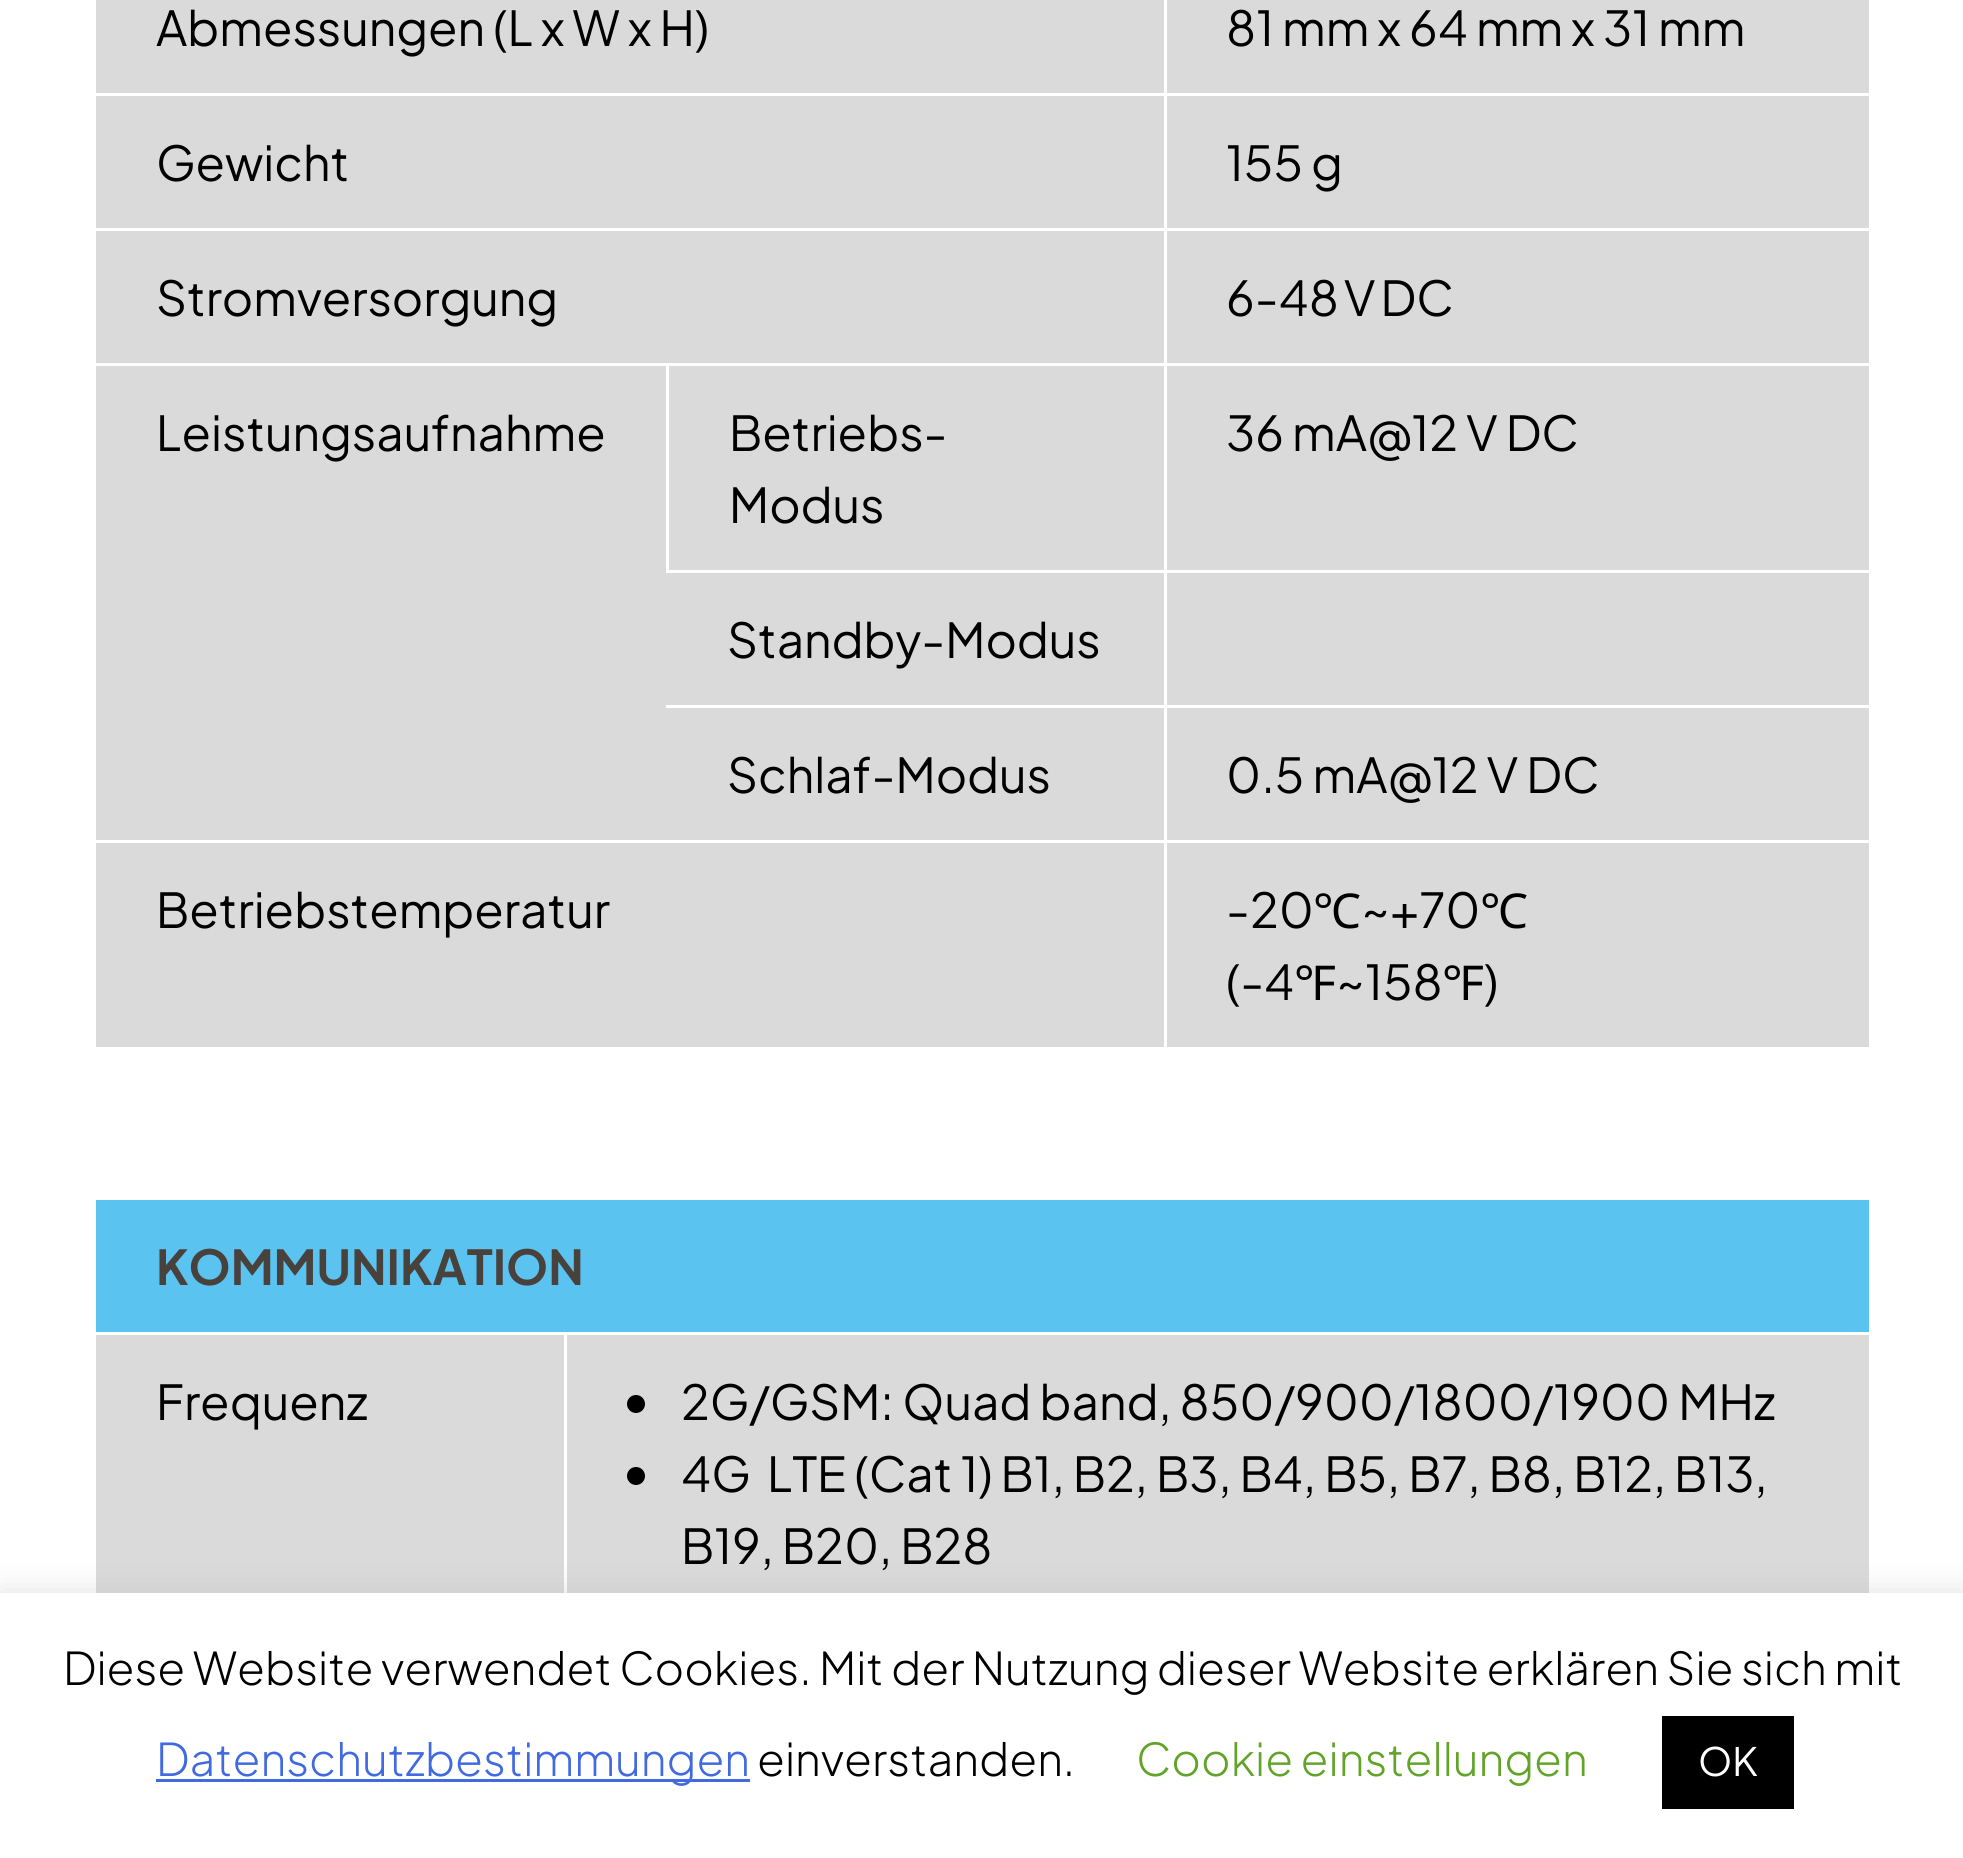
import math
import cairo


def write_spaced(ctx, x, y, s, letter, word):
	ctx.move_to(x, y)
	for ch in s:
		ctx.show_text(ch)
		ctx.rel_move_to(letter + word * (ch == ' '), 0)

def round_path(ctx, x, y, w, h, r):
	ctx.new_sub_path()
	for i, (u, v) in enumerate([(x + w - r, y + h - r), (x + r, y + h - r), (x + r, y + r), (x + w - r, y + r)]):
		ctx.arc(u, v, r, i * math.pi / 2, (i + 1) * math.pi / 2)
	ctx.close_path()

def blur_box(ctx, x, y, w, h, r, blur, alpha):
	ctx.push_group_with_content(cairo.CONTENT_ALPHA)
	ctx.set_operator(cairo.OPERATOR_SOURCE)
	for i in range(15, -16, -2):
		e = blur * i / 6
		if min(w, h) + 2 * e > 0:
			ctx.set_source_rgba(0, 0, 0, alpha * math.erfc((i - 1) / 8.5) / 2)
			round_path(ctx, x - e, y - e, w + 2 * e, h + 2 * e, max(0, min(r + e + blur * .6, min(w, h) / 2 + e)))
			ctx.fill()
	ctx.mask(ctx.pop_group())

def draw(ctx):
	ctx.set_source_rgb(1, 1, 1)
	ctx.paint()
	ctx.set_source_rgb(0.855, 0.855, 0.855)
	ctx.rectangle(96, 0, 1068, 93)
	ctx.fill()
	ctx.select_font_face('Plus Jakarta Sans')
	ctx.set_font_size(48)
	ctx.set_source_rgb(0, 0, 0)
	ctx.move_to(156, 46)
	ctx.show_text('Abmessungen (L x W x H)')
	ctx.set_source_rgb(0.855, 0.855, 0.855)
	ctx.rectangle(1167, 0, 702, 93)
	ctx.fill()
	ctx.set_source_rgb(0, 0, 0)
	ctx.move_to(1226, 46)
	ctx.show_text('81 mm x 64 mm x 31 mm')
	ctx.set_source_rgb(0.855, 0.855, 0.855)
	ctx.rectangle(96, 96, 1068, 132)
	ctx.fill()
	ctx.set_source_rgb(0, 0, 0)
	ctx.move_to(156, 181)
	ctx.show_text('Gewicht')
	ctx.set_source_rgb(0.855, 0.855, 0.855)
	ctx.rectangle(1167, 96, 702, 132)
	ctx.fill()
	ctx.set_source_rgb(0, 0, 0)
	ctx.move_to(1226, 181)
	ctx.show_text('155 g')
	ctx.set_source_rgb(0.855, 0.855, 0.855)
	ctx.rectangle(96, 231, 1068, 132)
	ctx.fill()
	ctx.set_source_rgb(0, 0, 0)
	ctx.move_to(156, 316)
	ctx.show_text('Stromversorgung')
	ctx.set_source_rgb(0.855, 0.855, 0.855)
	ctx.rectangle(1167, 231, 702, 132)
	ctx.fill()
	ctx.set_source_rgb(0, 0, 0)
	write_spaced(ctx, 1226, 316, '6-48 V DC', 0, -3)
	ctx.set_source_rgb(0.855, 0.855, 0.855)
	ctx.rectangle(96, 366, 570, 474)
	ctx.fill()
	ctx.set_source_rgb(0, 0, 0)
	ctx.move_to(156, 451)
	ctx.show_text('Leistungsaufnahme')
	ctx.set_source_rgb(0.855, 0.855, 0.855)
	ctx.rectangle(669, 366, 495, 204)
	ctx.fill()
	ctx.set_source_rgb(0, 0, 0)
	ctx.move_to(729, 451)
	ctx.show_text('Betriebs-')
	ctx.move_to(729, 523)
	ctx.show_text('Modus')
	ctx.set_source_rgb(0.855, 0.855, 0.855)
	ctx.rectangle(1167, 366, 702, 204)
	ctx.fill()
	ctx.set_source_rgb(0, 0, 0)
	ctx.move_to(1226, 451)
	ctx.show_text('36 mA@12 V DC')
	ctx.set_source_rgb(0.855, 0.855, 0.855)
	ctx.rectangle(666, 573, 498, 132)
	ctx.fill()
	ctx.set_source_rgb(0, 0, 0)
	ctx.move_to(727, 658)
	ctx.show_text('Standby-Modus')
	ctx.set_source_rgb(0.855, 0.855, 0.855)
	ctx.rectangle(1167, 573, 702, 132)
	ctx.fill()
	ctx.rectangle(666, 708, 498, 132)
	ctx.fill()
	ctx.set_source_rgb(0, 0, 0)
	ctx.move_to(727, 793)
	ctx.show_text('Schlaf-Modus')
	ctx.set_source_rgb(0.855, 0.855, 0.855)
	ctx.rectangle(1167, 708, 702, 132)
	ctx.fill()
	ctx.set_source_rgb(0, 0, 0)
	ctx.move_to(1226, 793)
	ctx.show_text('0.5 mA@12 V DC')
	ctx.set_source_rgb(0.855, 0.855, 0.855)
	ctx.rectangle(96, 843, 1068, 204)
	ctx.fill()
	ctx.set_source_rgb(0, 0, 0)
	ctx.move_to(156, 928)
	ctx.show_text('Betriebstemperatur')
	ctx.set_source_rgb(0.855, 0.855, 0.855)
	ctx.rectangle(1167, 843, 702, 204)
	ctx.fill()
	ctx.set_source_rgb(0, 0, 0)
	ctx.move_to(1226, 928)
	ctx.show_text('-20')
	ctx.select_font_face('Noto Sans')
	ctx.move_to(1313, 928)
	ctx.show_text('℃')
	ctx.select_font_face('Plus Jakarta Sans')
	ctx.move_to(1361, 928)
	ctx.show_text('~+70')
	ctx.select_font_face('Noto Sans')
	ctx.move_to(1480, 928)
	ctx.show_text('℃')
	ctx.select_font_face('Plus Jakarta Sans')
	ctx.move_to(1226, 1000)
	ctx.show_text('(-4')
	ctx.select_font_face('Noto Sans')
	ctx.move_to(1294, 1000)
	ctx.show_text('℉')
	ctx.select_font_face('Plus Jakarta Sans')
	ctx.move_to(1336, 1000)
	ctx.show_text('~158')
	ctx.select_font_face('Noto Sans')
	ctx.move_to(1442, 1000)
	ctx.show_text('℉')
	ctx.select_font_face('Plus Jakarta Sans')
	ctx.move_to(1484, 1000)
	ctx.show_text(')')
	ctx.set_source_rgb(0.353, 0.765, 0.941)
	ctx.rectangle(96, 1200, 1773, 132)
	ctx.fill()
	ctx.select_font_face('Plus Jakarta Sans', cairo.FONT_SLANT_NORMAL, cairo.FONT_WEIGHT_BOLD)
	ctx.set_source_rgb(0.286, 0.255, 0.235)
	ctx.move_to(156, 1285)
	ctx.show_text('KOMMUNIKATION')
	ctx.set_source_rgb(0.855, 0.855, 0.855)
	ctx.rectangle(96, 1335, 468, 258)
	ctx.fill()
	ctx.select_font_face('Plus Jakarta Sans')
	ctx.set_source_rgb(0, 0, 0)
	ctx.move_to(156, 1420)
	ctx.show_text('Frequenz')
	ctx.set_source_rgb(0.855, 0.855, 0.855)
	ctx.rectangle(567, 1335, 1302, 258)
	ctx.fill()
	ctx.set_source_rgb(0, 0, 0)
	ctx.arc(636, 1404, 9, 0, 2 * math.pi)
	ctx.fill()
	ctx.move_to(681, 1420)
	ctx.show_text('2G/GSM: Quad band, 850/900/1800/1900 MHz')
	ctx.new_path()
	ctx.arc(636, 1476, 9, 0, 2 * math.pi)
	ctx.fill()
	ctx.move_to(681, 1492)
	ctx.show_text('4G  LTE (Cat 1) B1, B2, B3, B4, B5, B7, B8, B12, B13,')
	ctx.move_to(681, 1564)
	ctx.show_text('B19, B20, B28')
	ctx.set_source_rgb(0.675, 0.671, 0.671)
	blur_box(ctx, 0, 1590, 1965, 267, 0, 15, 0.3)
	ctx.set_source_rgb(1, 1, 1)
	ctx.rectangle(0, 1593, 1963, 265)
	ctx.fill()
	ctx.select_font_face('Plus Jakarta Sans Light')
	ctx.set_font_size(45)
	ctx.set_source_rgb(0, 0, 0)
	ctx.move_to(63, 1685)
	ctx.show_text('Diese Website verwendet Cookies. Mit der Nutzung dieser Website erklären Sie sich mit')
	ctx.set_source_rgb(0.255, 0.412, 0.882)
	ctx.rectangle(156, 1779, 594, 3)
	ctx.fill()
	ctx.move_to(156, 1776)
	ctx.show_text('Datenschutzbestimmungen')
	ctx.set_source_rgb(0, 0, 0)
	ctx.move_to(757, 1776)
	ctx.show_text('einverstanden.')
	ctx.set_source_rgb(0.384, 0.639, 0.161)
	ctx.move_to(1136, 1776)
	ctx.show_text('Cookie einstellungen')
	ctx.set_source_rgb(0, 0, 0)
	ctx.rectangle(1662, 1716, 132, 93)
	ctx.fill()
	ctx.select_font_face('Plus Jakarta Sans')
	ctx.set_font_size(39)
	ctx.set_source_rgb(1, 1, 1)
	ctx.move_to(1698, 1776)
	ctx.show_text('OK')


surface = cairo.ImageSurface(cairo.FORMAT_RGB24, 1963, 1858)
ctx = cairo.Context(surface)
options = cairo.FontOptions()
options.set_hint_metrics(cairo.HINT_METRICS_OFF)
options.set_hint_style(cairo.HINT_STYLE_NONE)
ctx.set_font_options(options)
ctx.set_miter_limit(4)
draw(ctx)
surface.write_to_png('image.png')
